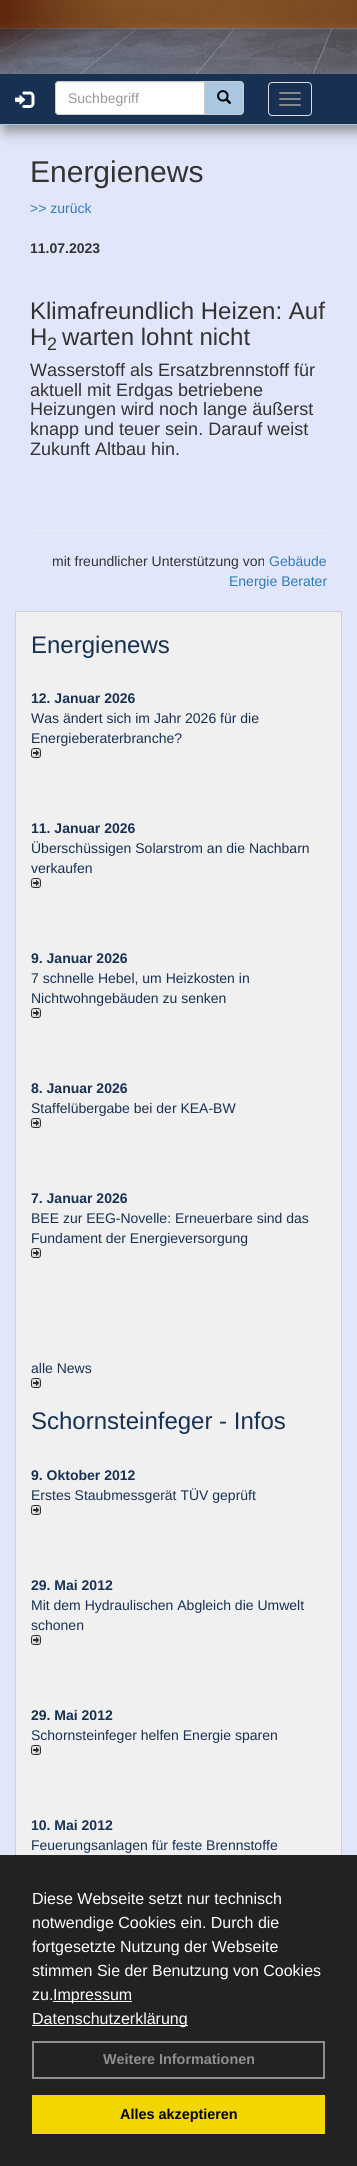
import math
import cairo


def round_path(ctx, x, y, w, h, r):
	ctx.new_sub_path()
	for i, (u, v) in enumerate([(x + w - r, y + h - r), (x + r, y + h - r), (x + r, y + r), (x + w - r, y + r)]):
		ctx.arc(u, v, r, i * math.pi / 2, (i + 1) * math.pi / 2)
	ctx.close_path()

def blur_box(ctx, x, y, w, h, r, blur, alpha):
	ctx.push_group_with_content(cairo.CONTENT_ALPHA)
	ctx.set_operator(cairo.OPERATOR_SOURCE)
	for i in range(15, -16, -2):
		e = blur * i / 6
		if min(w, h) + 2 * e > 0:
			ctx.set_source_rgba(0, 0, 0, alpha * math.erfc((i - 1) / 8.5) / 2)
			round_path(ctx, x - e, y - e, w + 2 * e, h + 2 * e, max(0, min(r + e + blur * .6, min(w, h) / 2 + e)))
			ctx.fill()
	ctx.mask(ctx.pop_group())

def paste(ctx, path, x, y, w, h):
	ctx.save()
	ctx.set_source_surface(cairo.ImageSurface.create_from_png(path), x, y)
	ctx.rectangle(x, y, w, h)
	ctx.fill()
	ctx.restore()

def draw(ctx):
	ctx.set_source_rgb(0.882, 0.902, 0.98)
	ctx.paint()
	paste(ctx, 'media/1.png', 0, 0, 357, 74)
	ctx.set_source_rgb(0.502, 0.502, 0.502)
	blur_box(ctx, 5, 79, 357, 51, 0, 7.5, 1)
	ctx.set_source_rgb(0.094, 0.192, 0.322)
	ctx.rectangle(0, 74, 357, 50)
	ctx.fill()
	ctx.set_source_rgb(0.671, 0.784, 0.886)
	ctx.rectangle(0, 124, 357, 1)
	ctx.fill()
	paste(ctx, 'media/2.png', 15, 91, 20, 17)
	ctx.set_source_rgb(1, 1, 1)
	ctx.new_path()
	ctx.move_to(59, 81)
	ctx.line_to(205, 81)
	ctx.line_to(205, 115)
	ctx.line_to(59, 115)
	ctx.curve_to(57, 115, 55, 113, 55, 111)
	ctx.line_to(55, 85)
	ctx.curve_to(55, 83, 57, 81, 59, 81)
	ctx.close_path()
	ctx.fill()
	ctx.set_source_rgb(0.925, 0.925, 0.925)
	ctx.new_path()
	ctx.move_to(59, 83)
	ctx.line_to(204, 83)
	ctx.line_to(204, 82)
	ctx.line_to(59, 82)
	ctx.curve_to(57, 82, 56, 84, 56, 86)
	ctx.curve_to(56, 84, 57, 83, 59, 83)
	ctx.close_path()
	ctx.fill()
	ctx.new_path()
	ctx.move_to(59, 81.5)
	ctx.line_to(204.5, 81.5)
	ctx.line_to(204.5, 114.5)
	ctx.line_to(59, 114.5)
	ctx.curve_to(57, 114.5, 55.5, 113, 55.5, 111)
	ctx.line_to(55.5, 85)
	ctx.curve_to(55.5, 83, 57, 81.5, 59, 81.5)
	ctx.close_path()
	ctx.set_source_rgb(0.8, 0.8, 0.8)
	ctx.set_line_width(1)
	ctx.stroke()
	ctx.select_font_face('Liberation Sans')
	ctx.set_font_size(14)
	ctx.set_source_rgb(0.6, 0.6, 0.6)
	ctx.move_to(68, 103)
	ctx.show_text('Suchbegriff')
	ctx.set_source_rgb(0.671, 0.784, 0.886)
	ctx.new_path()
	ctx.move_to(204.5, 81.5)
	ctx.line_to(240, 81.5)
	ctx.curve_to(242, 81.5, 243.5, 83, 243.5, 85)
	ctx.line_to(243.5, 111)
	ctx.curve_to(243.5, 113, 242, 114.5, 240, 114.5)
	ctx.line_to(204.5, 114.5)
	ctx.close_path()
	ctx.fill_preserve()
	ctx.set_source_rgb(0.8, 0.8, 0.8)
	ctx.stroke()
	paste(ctx, 'media/3.png', 217, 90, 15, 14)
	round_path(ctx, 268.5, 82.5, 43, 33, 3.5)
	ctx.set_source_rgb(0.867, 0.867, 0.867)
	ctx.stroke()
	ctx.set_source_rgb(0.533, 0.533, 0.533)
	round_path(ctx, 279, 92, 22, 2, 1)
	ctx.fill()
	round_path(ctx, 279, 98, 22, 2, 1)
	ctx.fill()
	round_path(ctx, 279, 104, 22, 2, 1)
	ctx.fill()
	ctx.set_font_size(30)
	ctx.set_source_rgb(0.2, 0.2, 0.2)
	ctx.move_to(30, 182)
	ctx.show_text('Energienews')
	ctx.set_font_size(14)
	ctx.set_source_rgb(0.2, 0.478, 0.718)
	ctx.move_to(30, 213)
	ctx.show_text('>> zurück')
	ctx.select_font_face('Liberation Sans', cairo.FONT_SLANT_NORMAL, cairo.FONT_WEIGHT_BOLD)
	ctx.set_source_rgb(0.2, 0.2, 0.2)
	ctx.move_to(30, 253)
	ctx.show_text('11.07.2023')
	ctx.select_font_face('Liberation Sans')
	ctx.set_font_size(24)
	ctx.move_to(30, 319)
	ctx.show_text('Klimafreundlich Heizen: Auf')
	ctx.move_to(30, 345)
	ctx.show_text('H')
	ctx.set_font_size(18)
	ctx.move_to(47, 350)
	ctx.show_text('2')
	ctx.set_font_size(24)
	ctx.move_to(62, 345)
	ctx.show_text('warten lohnt nicht')
	ctx.set_font_size(18)
	for x, y, s in [
		(30, 376, 'Wasserstoff als Ersatzbrennstoff für'),
		(30, 396, 'aktuell mit Erdgas betriebene'),
		(30, 415, 'Heizungen wird noch lange äußerst'),
		(30, 435, 'knapp und teuer sein. Darauf weist'),
		(30, 455, 'Zukunft Altbau hin.'),
	]:
		ctx.move_to(x, y)
		ctx.show_text(s)
	ctx.set_source_rgb(0.933, 0.933, 0.933)
	ctx.rectangle(30, 530, 297, 1)
	ctx.fill()
	ctx.set_font_size(14)
	ctx.set_source_rgb(0.2, 0.2, 0.2)
	ctx.move_to(52, 566)
	ctx.show_text('mit freundlicher Unterstützung von')
	ctx.set_source_rgb(0.2, 0.478, 0.718)
	ctx.move_to(269, 566)
	ctx.show_text('Gebäude')
	ctx.move_to(229, 586)
	ctx.show_text('Energie Berater')
	ctx.set_source_rgb(0.941, 0.941, 0.941)
	ctx.rectangle(16, 612, 325, 1243)
	ctx.fill()
	ctx.rectangle(15.5, 611.5, 326, 1514)
	ctx.set_source_rgb(0.816, 0.816, 0.816)
	ctx.stroke()
	ctx.set_font_size(24)
	ctx.set_source_rgb(0.094, 0.192, 0.322)
	ctx.move_to(31, 653)
	ctx.show_text('Energienews')
	ctx.select_font_face('Liberation Sans', cairo.FONT_SLANT_NORMAL, cairo.FONT_WEIGHT_BOLD)
	ctx.set_font_size(14)
	ctx.move_to(31, 703)
	ctx.show_text('12. Januar 2026')
	ctx.select_font_face('Liberation Sans')
	ctx.move_to(31, 723)
	ctx.show_text('Was ändert sich im Jahr 2026 für die')
	ctx.move_to(31, 743)
	ctx.show_text('Energieberaterbranche?')
	paste(ctx, 'media/4.png', 31, 748, 10, 10)
	ctx.select_font_face('Liberation Sans', cairo.FONT_SLANT_NORMAL, cairo.FONT_WEIGHT_BOLD)
	ctx.move_to(31, 833)
	ctx.show_text('11. Januar 2026')
	ctx.select_font_face('Liberation Sans')
	ctx.move_to(31, 853)
	ctx.show_text('Überschüssigen Solarstrom an die Nachbarn')
	ctx.move_to(31, 873)
	ctx.show_text('verkaufen')
	paste(ctx, 'media/4.png', 31, 878, 10, 10)
	ctx.select_font_face('Liberation Sans', cairo.FONT_SLANT_NORMAL, cairo.FONT_WEIGHT_BOLD)
	ctx.move_to(31, 963)
	ctx.show_text('9. Januar 2026')
	ctx.select_font_face('Liberation Sans')
	ctx.move_to(31, 983)
	ctx.show_text('7 schnelle Hebel, um Heizkosten in')
	ctx.move_to(31, 1003)
	ctx.show_text('Nichtwohngebäuden zu senken')
	paste(ctx, 'media/4.png', 31, 1008, 10, 10)
	ctx.select_font_face('Liberation Sans', cairo.FONT_SLANT_NORMAL, cairo.FONT_WEIGHT_BOLD)
	ctx.move_to(31, 1093)
	ctx.show_text('8. Januar 2026')
	ctx.select_font_face('Liberation Sans')
	ctx.move_to(31, 1113)
	ctx.show_text('Staffelübergabe bei der KEA-BW')
	paste(ctx, 'media/4.png', 31, 1118, 10, 10)
	ctx.select_font_face('Liberation Sans', cairo.FONT_SLANT_NORMAL, cairo.FONT_WEIGHT_BOLD)
	ctx.move_to(31, 1203)
	ctx.show_text('7. Januar 2026')
	ctx.select_font_face('Liberation Sans')
	ctx.move_to(31, 1223)
	ctx.show_text('BEE zur EEG-Novelle: Erneuerbare sind das')
	ctx.move_to(31, 1243)
	ctx.show_text('Fundament der Energieversorgung')
	paste(ctx, 'media/4.png', 31, 1248, 10, 10)
	ctx.move_to(31, 1373)
	ctx.show_text('alle News')
	paste(ctx, 'media/4.png', 31, 1378, 10, 10)
	ctx.set_font_size(24)
	ctx.move_to(31, 1429)
	ctx.show_text('Schornsteinfeger - Infos')
	ctx.select_font_face('Liberation Sans', cairo.FONT_SLANT_NORMAL, cairo.FONT_WEIGHT_BOLD)
	ctx.set_font_size(14)
	ctx.move_to(31, 1480)
	ctx.show_text('9. Oktober 2012')
	ctx.select_font_face('Liberation Sans')
	ctx.move_to(31, 1500)
	ctx.show_text('Erstes Staubmessgerät TÜV geprüft')
	paste(ctx, 'media/4.png', 31, 1505, 10, 10)
	ctx.select_font_face('Liberation Sans', cairo.FONT_SLANT_NORMAL, cairo.FONT_WEIGHT_BOLD)
	ctx.move_to(31, 1590)
	ctx.show_text('29. Mai 2012')
	ctx.select_font_face('Liberation Sans')
	ctx.move_to(31, 1610)
	ctx.show_text('Mit dem Hydraulischen Abgleich die Umwelt')
	ctx.move_to(31, 1630)
	ctx.show_text('schonen')
	paste(ctx, 'media/4.png', 31, 1635, 10, 10)
	ctx.select_font_face('Liberation Sans', cairo.FONT_SLANT_NORMAL, cairo.FONT_WEIGHT_BOLD)
	ctx.move_to(31, 1720)
	ctx.show_text('29. Mai 2012')
	ctx.select_font_face('Liberation Sans')
	ctx.move_to(31, 1740)
	ctx.show_text('Schornsteinfeger helfen Energie sparen')
	paste(ctx, 'media/4.png', 31, 1745, 10, 10)
	ctx.select_font_face('Liberation Sans', cairo.FONT_SLANT_NORMAL, cairo.FONT_WEIGHT_BOLD)
	ctx.move_to(31, 1830)
	ctx.show_text('10. Mai 2012')
	ctx.select_font_face('Liberation Sans')
	ctx.move_to(31, 1850)
	ctx.show_text('Feuerungsanlagen für feste Brennstoffe')
	ctx.set_source_rgb(0.133, 0.133, 0.133)
	ctx.rectangle(0, 1855, 357, 311)
	ctx.fill()
	ctx.set_font_size(16)
	ctx.set_source_rgb(1, 1, 1)
	for x, y, s in [
		(32, 1904, 'Diese Webseite setzt nur technisch'),
		(32, 1928, 'notwendige Cookies ein. Durch die'),
		(32, 1952, 'fortgesetzte Nutzung der Webseite'),
		(32, 1976, 'stimmen Sie der Benutzung von Cookies'),
		(32, 2000, 'zu.'),
	]:
		ctx.move_to(x, y)
		ctx.show_text(s)
	ctx.rectangle(53, 2001, 79, 1)
	ctx.fill()
	ctx.move_to(53, 2000)
	ctx.show_text('Impressum')
	ctx.rectangle(32, 2025, 156, 1)
	ctx.fill()
	ctx.move_to(32, 2024)
	ctx.show_text('Datenschutzerklärung')
	ctx.rectangle(33, 2042, 291, 36)
	ctx.set_source_rgb(0.561, 0.561, 0.561)
	ctx.set_line_width(2)
	ctx.stroke()
	ctx.select_font_face('Liberation Sans', cairo.FONT_SLANT_NORMAL, cairo.FONT_WEIGHT_BOLD)
	ctx.set_font_size(14.4)
	ctx.move_to(103, 2064)
	ctx.show_text('Weitere Informationen')
	ctx.set_source_rgb(0.945, 0.839, 0)
	ctx.rectangle(32, 2095, 293, 39)
	ctx.fill()
	ctx.set_source_rgb(0, 0, 0)
	ctx.move_to(120, 2119)
	ctx.show_text('Alles akzeptieren')


surface = cairo.ImageSurface(cairo.FORMAT_RGB24, 357, 2166)
ctx = cairo.Context(surface)
options = cairo.FontOptions()
options.set_hint_metrics(cairo.HINT_METRICS_OFF)
options.set_hint_style(cairo.HINT_STYLE_NONE)
ctx.set_font_options(options)
ctx.set_miter_limit(4)
draw(ctx)
surface.write_to_png('image.png')
